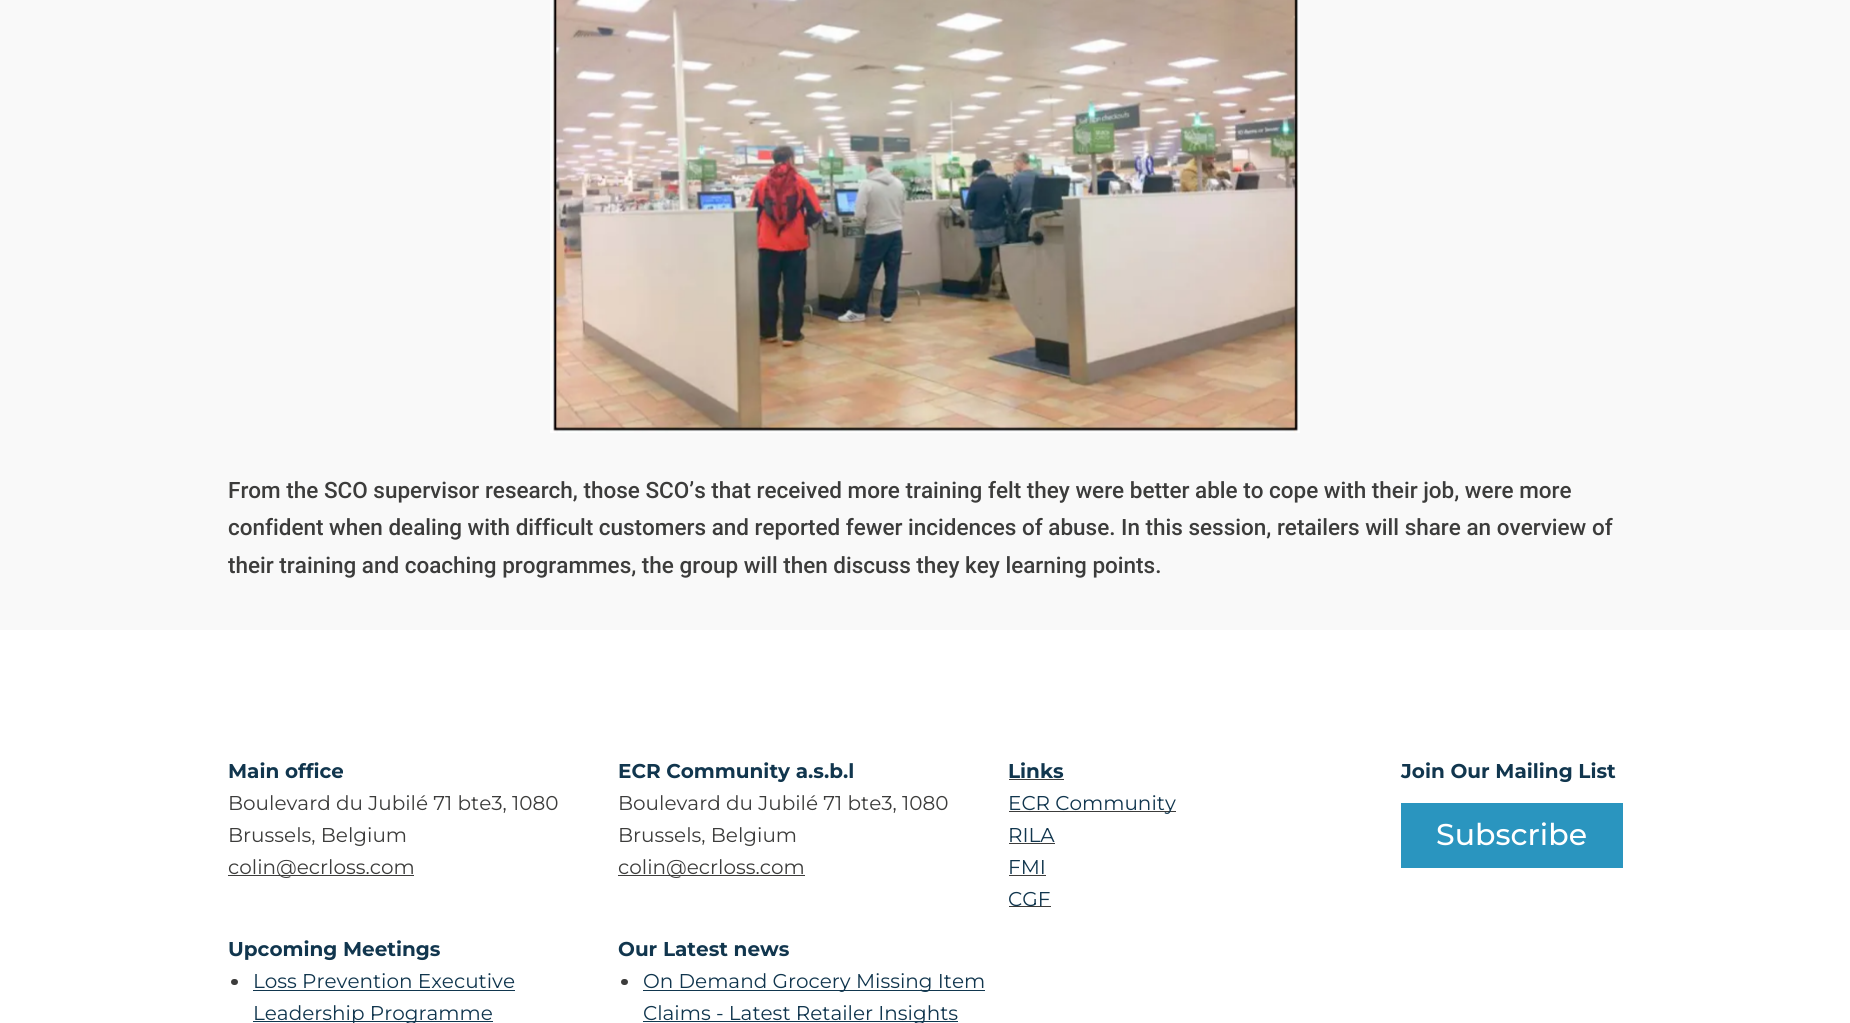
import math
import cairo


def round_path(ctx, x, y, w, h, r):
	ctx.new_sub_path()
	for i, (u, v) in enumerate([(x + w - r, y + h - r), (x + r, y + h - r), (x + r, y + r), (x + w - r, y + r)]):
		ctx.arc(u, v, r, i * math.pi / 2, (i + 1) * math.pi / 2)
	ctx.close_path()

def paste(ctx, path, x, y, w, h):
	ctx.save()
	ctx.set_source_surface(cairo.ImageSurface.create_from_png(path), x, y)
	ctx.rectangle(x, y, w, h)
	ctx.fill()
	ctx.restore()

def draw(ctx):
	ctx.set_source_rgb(1, 1, 1)
	ctx.paint()
	ctx.set_source_rgb(0.976, 0.976, 0.976)
	ctx.rectangle(0, 0, 1850, 630)
	ctx.fill()
	paste(ctx, 'media/1.png', 550, 0, 750, 433)
	ctx.select_font_face('Roboto Medium')
	ctx.set_font_size(22.5)
	ctx.set_source_rgb(0.235, 0.235, 0.231)
	for x, y, s in [
		(228, 498, 'From the SCO supervisor research, those SCO’s that received more training felt they were better able to cope with their job, were more'),
		(228, 535, 'confident when dealing with difficult customers and reported fewer incidences of abuse. In this session, retailers will share an overview of'),
		(228, 573, 'their training and coaching programmes, the group will then discuss they key learning points.'),
	]:
		ctx.move_to(x, y)
		ctx.show_text(s)
	ctx.select_font_face('Montserrat Thin')
	ctx.set_font_size(20)
	ctx.set_source_rgb(0.067, 0.212, 0.306)
	ctx.move_to(228, 778)
	ctx.show_text('Main office')
	ctx.select_font_face('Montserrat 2 Thin')
	ctx.set_source_rgb(0.235, 0.235, 0.231)
	ctx.move_to(228, 810)
	ctx.show_text('Boulevard du Jubilé 71 bte3, 1080')
	ctx.move_to(228, 842)
	ctx.show_text('Brussels, Belgium')
	ctx.rectangle(228, 875, 186, 1)
	ctx.fill()
	ctx.move_to(228, 874)
	ctx.show_text('colin@ecrloss.com')
	ctx.select_font_face('Montserrat Thin')
	ctx.set_source_rgb(0.067, 0.212, 0.306)
	ctx.move_to(618, 778)
	ctx.show_text('ECR Community a.s.b.l')
	ctx.select_font_face('Montserrat 2 Thin')
	ctx.set_source_rgb(0.235, 0.235, 0.231)
	ctx.move_to(618, 810)
	ctx.show_text('Boulevard du Jubilé 71 bte3, 1080')
	ctx.move_to(618, 842)
	ctx.show_text('Brussels, Belgium')
	ctx.rectangle(618, 875, 187, 1)
	ctx.fill()
	ctx.move_to(618, 874)
	ctx.show_text('colin@ecrloss.com')
	ctx.select_font_face('Montserrat Thin')
	ctx.set_source_rgb(0.067, 0.212, 0.306)
	ctx.move_to(1008, 778)
	ctx.show_text('Links')
	ctx.set_source_rgb(0.235, 0.235, 0.231)
	ctx.rectangle(1009, 779, 55, 1)
	ctx.fill()
	ctx.rectangle(1009, 811, 167, 1)
	ctx.fill()
	ctx.select_font_face('Montserrat 2 Thin')
	ctx.set_source_rgb(0.067, 0.212, 0.306)
	ctx.move_to(1008, 810)
	ctx.show_text('ECR Community')
	ctx.move_to(1008, 842)
	ctx.show_text('RILA')
	ctx.set_source_rgb(0.235, 0.235, 0.231)
	ctx.rectangle(1009, 843, 46, 1)
	ctx.fill()
	ctx.set_source_rgb(0.067, 0.212, 0.306)
	ctx.move_to(1008, 874)
	ctx.show_text('FMI')
	ctx.set_source_rgb(0.235, 0.235, 0.231)
	ctx.rectangle(1009, 875, 37, 1)
	ctx.fill()
	ctx.rectangle(1009, 906, 42, 1)
	ctx.fill()
	ctx.set_source_rgb(0.067, 0.212, 0.306)
	ctx.move_to(1008, 906)
	ctx.show_text('CGF')
	ctx.select_font_face('Montserrat Thin')
	ctx.move_to(228, 956)
	ctx.show_text('Upcoming Meetings')
	ctx.set_source_rgb(0.235, 0.235, 0.231)
	round_path(ctx, 231, 979, 7, 6, 3)
	ctx.fill()
	ctx.select_font_face('Montserrat 2 Thin')
	ctx.set_source_rgb(0.067, 0.212, 0.306)
	ctx.move_to(253, 988)
	ctx.show_text('Loss Prevention Executive')
	ctx.rectangle(253, 990, 262, 1)
	ctx.fill()
	ctx.rectangle(253, 1021, 240, 1)
	ctx.fill()
	ctx.move_to(253, 1020)
	ctx.show_text('Leadership Programme')
	ctx.select_font_face('Montserrat Thin')
	ctx.move_to(618, 956)
	ctx.show_text('Our Latest news')
	ctx.set_source_rgb(0.235, 0.235, 0.231)
	round_path(ctx, 621, 979, 7, 6, 3)
	ctx.fill()
	ctx.set_source_rgb(0.067, 0.212, 0.306)
	ctx.rectangle(643, 990, 342, 1)
	ctx.fill()
	ctx.select_font_face('Montserrat 2 Thin')
	ctx.move_to(643, 988)
	ctx.show_text('On Demand Grocery Missing Item')
	ctx.rectangle(643, 1021, 315, 1)
	ctx.fill()
	ctx.move_to(643, 1020)
	ctx.show_text('Claims - Latest Retailer Insights')
	ctx.select_font_face('Montserrat Thin')
	ctx.move_to(1401, 778)
	ctx.show_text('Join Our Mailing List')
	ctx.set_source_rgb(0.165, 0.584, 0.749)
	ctx.rectangle(1401, 803, 222, 65)
	ctx.fill()
	ctx.select_font_face('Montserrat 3 Thin')
	ctx.set_font_size(30)
	ctx.set_source_rgb(1, 1, 1)
	ctx.move_to(1436, 845)
	ctx.show_text('Subscribe')


surface = cairo.ImageSurface(cairo.FORMAT_RGB24, 1850, 1023)
ctx = cairo.Context(surface)
options = cairo.FontOptions()
options.set_hint_metrics(cairo.HINT_METRICS_OFF)
options.set_hint_style(cairo.HINT_STYLE_NONE)
ctx.set_font_options(options)
ctx.set_miter_limit(4)
draw(ctx)
surface.write_to_png('image.png')
